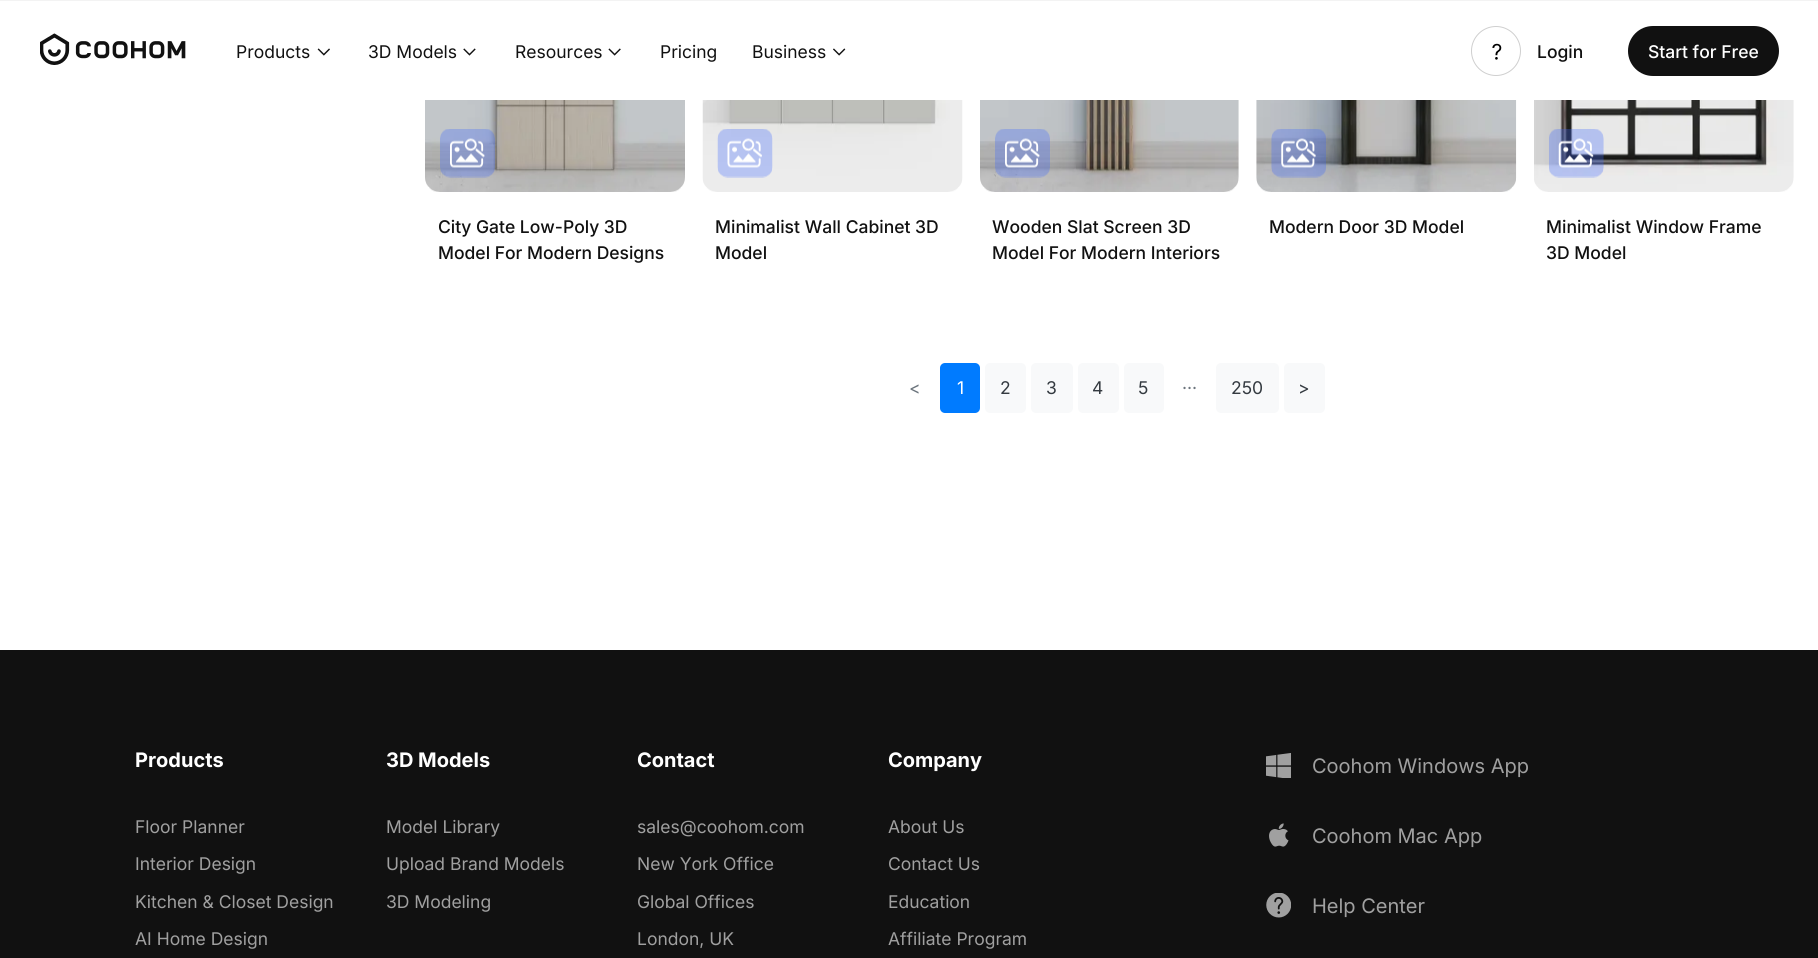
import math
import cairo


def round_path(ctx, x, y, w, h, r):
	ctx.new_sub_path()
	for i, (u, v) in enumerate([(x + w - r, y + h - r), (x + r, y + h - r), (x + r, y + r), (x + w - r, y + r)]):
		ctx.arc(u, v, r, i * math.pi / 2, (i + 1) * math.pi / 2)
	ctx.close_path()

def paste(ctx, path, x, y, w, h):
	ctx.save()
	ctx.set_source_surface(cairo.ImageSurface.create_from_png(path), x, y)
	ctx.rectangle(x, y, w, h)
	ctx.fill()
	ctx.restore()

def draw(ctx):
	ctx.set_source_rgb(1, 1, 1)
	ctx.paint()
	ctx.set_source_rgb(0.953, 0.953, 0.953)
	ctx.rectangle(0, 0, 1818, 1)
	ctx.fill()
	paste(ctx, 'media/1.png', 40, 33, 146, 32)
	ctx.select_font_face('Inter')
	ctx.set_font_size(17.5)
	ctx.set_source_rgb(0.067, 0.067, 0.067)
	ctx.move_to(236, 58)
	ctx.show_text('Products')
	paste(ctx, 'media/2.png', 317, 48, 13, 8)
	ctx.move_to(368, 58)
	ctx.show_text('3D Models')
	paste(ctx, 'media/3.png', 463, 48, 13, 8)
	ctx.move_to(515, 58)
	ctx.show_text('Resources')
	paste(ctx, 'media/4.png', 608, 48, 13, 8)
	ctx.move_to(660, 58)
	ctx.show_text('Pricing')
	ctx.move_to(752, 58)
	ctx.show_text('Business')
	paste(ctx, 'media/5.png', 833, 48, 13, 8)
	paste(ctx, 'media/6.png', 1492, 43, 10, 17)
	ctx.arc(1496, 51, 24.5, 0, 2 * math.pi)
	ctx.set_source_rgb(0.812, 0.812, 0.812)
	ctx.set_line_width(1)
	ctx.stroke()
	ctx.select_font_face('Inter Medium')
	ctx.set_source_rgb(0.067, 0.067, 0.067)
	ctx.move_to(1537, 58)
	ctx.show_text('Login')
	round_path(ctx, 1628, 26, 151, 50, 25)
	ctx.fill()
	ctx.set_source_rgb(1, 1, 1)
	ctx.move_to(1648, 58)
	ctx.show_text('Start for Free')
	paste(ctx, 'media/7.png', 425, 100, 260, 92)
	paste(ctx, 'media/8.png', 440, 129, 55, 49)
	ctx.set_source_rgb(0.067, 0.067, 0.067)
	ctx.move_to(438, 233)
	ctx.show_text('City Gate Low-Poly 3D')
	ctx.move_to(438, 259)
	ctx.show_text('Model For Modern Designs')
	paste(ctx, 'media/9.png', 702, 100, 261, 92)
	paste(ctx, 'media/10.png', 717, 129, 56, 49)
	ctx.move_to(715, 233)
	ctx.show_text('Minimalist Wall Cabinet 3D')
	ctx.move_to(715, 259)
	ctx.show_text('Model')
	paste(ctx, 'media/11.png', 980, 100, 259, 92)
	paste(ctx, 'media/12.png', 995, 129, 55, 49)
	ctx.move_to(992, 233)
	ctx.show_text('Wooden Slat Screen 3D')
	ctx.move_to(992, 259)
	ctx.show_text('Model For Modern Interiors')
	paste(ctx, 'media/13.png', 1256, 100, 261, 92)
	paste(ctx, 'media/14.png', 1271, 129, 55, 49)
	ctx.move_to(1269, 233)
	ctx.show_text('Modern Door 3D Model')
	paste(ctx, 'media/15.png', 1534, 100, 260, 92)
	paste(ctx, 'media/16.png', 1549, 129, 55, 49)
	ctx.move_to(1546, 233)
	ctx.show_text('Minimalist Window Frame')
	ctx.move_to(1546, 259)
	ctx.show_text('3D Model')
	ctx.select_font_face('Inter')
	ctx.set_source_rgb(0.424, 0.459, 0.49)
	ctx.move_to(909, 394)
	ctx.show_text('<')
	ctx.set_source_rgb(0, 0.482, 1)
	round_path(ctx, 940, 363, 40, 50, 5)
	ctx.fill()
	ctx.set_source_rgb(1, 1, 1)
	ctx.move_to(957, 394)
	ctx.show_text('1')
	ctx.set_source_rgb(0.969, 0.973, 0.98)
	round_path(ctx, 985, 363, 41, 50, 5)
	ctx.fill()
	ctx.set_source_rgb(0.204, 0.227, 0.251)
	ctx.move_to(1000, 394)
	ctx.show_text('2')
	ctx.set_source_rgb(0.969, 0.973, 0.98)
	round_path(ctx, 1031, 363, 42, 50, 5)
	ctx.fill()
	ctx.set_source_rgb(0.204, 0.227, 0.251)
	ctx.move_to(1046, 394)
	ctx.show_text('3')
	ctx.set_source_rgb(0.969, 0.973, 0.98)
	round_path(ctx, 1078, 363, 41, 50, 5)
	ctx.fill()
	ctx.set_source_rgb(0.204, 0.227, 0.251)
	ctx.move_to(1092, 394)
	ctx.show_text('4')
	ctx.set_source_rgb(0.969, 0.973, 0.98)
	round_path(ctx, 1124, 363, 40, 50, 5)
	ctx.fill()
	ctx.set_source_rgb(0.204, 0.227, 0.251)
	ctx.move_to(1138, 394)
	ctx.show_text('5')
	ctx.set_source_rgb(0.424, 0.459, 0.49)
	ctx.move_to(1182, 394)
	ctx.show_text('···')
	ctx.set_source_rgb(0.969, 0.973, 0.98)
	round_path(ctx, 1216, 363, 63, 50, 5)
	ctx.fill()
	ctx.set_source_rgb(0.204, 0.227, 0.251)
	ctx.move_to(1231, 394)
	ctx.show_text('250')
	ctx.set_source_rgb(0.969, 0.973, 0.98)
	round_path(ctx, 1284, 363, 41, 50, 5)
	ctx.fill()
	ctx.set_source_rgb(0.204, 0.227, 0.251)
	ctx.move_to(1298, 394)
	ctx.show_text('>')
	ctx.set_source_rgb(0.067, 0.067, 0.067)
	ctx.rectangle(0, 650, 1818, 308)
	ctx.fill()
	ctx.select_font_face('Inter', cairo.FONT_SLANT_NORMAL, cairo.FONT_WEIGHT_BOLD)
	ctx.set_font_size(20)
	ctx.set_source_rgb(1, 1, 1)
	ctx.move_to(135, 767)
	ctx.show_text('Products')
	ctx.select_font_face('Inter')
	ctx.set_font_size(17.5)
	ctx.set_source_rgb(0.627, 0.627, 0.627)
	for x, y, s in [
		(135, 833, 'Floor Planner'),
		(135, 870, 'Interior Design'),
		(135, 908, 'Kitchen & Closet Design'),
		(135, 945, 'AI Home Design'),
	]:
		ctx.move_to(x, y)
		ctx.show_text(s)
	ctx.select_font_face('Inter', cairo.FONT_SLANT_NORMAL, cairo.FONT_WEIGHT_BOLD)
	ctx.set_font_size(20)
	ctx.set_source_rgb(1, 1, 1)
	ctx.move_to(386, 767)
	ctx.show_text('3D Models')
	ctx.select_font_face('Inter')
	ctx.set_font_size(17.5)
	ctx.set_source_rgb(0.627, 0.627, 0.627)
	for x, y, s in [
		(386, 833, 'Model Library'),
		(386, 870, 'Upload Brand Models'),
		(386, 908, '3D Modeling'),
	]:
		ctx.move_to(x, y)
		ctx.show_text(s)
	ctx.select_font_face('Inter', cairo.FONT_SLANT_NORMAL, cairo.FONT_WEIGHT_BOLD)
	ctx.set_font_size(20)
	ctx.set_source_rgb(1, 1, 1)
	ctx.move_to(637, 767)
	ctx.show_text('Contact')
	ctx.select_font_face('Inter')
	ctx.set_font_size(17.5)
	ctx.set_source_rgb(0.627, 0.627, 0.627)
	for x, y, s in [
		(637, 833, 'sales@coohom.com'),
		(637, 870, 'New York Office'),
		(637, 908, 'Global Offices'),
		(637, 945, 'London, UK'),
	]:
		ctx.move_to(x, y)
		ctx.show_text(s)
	ctx.select_font_face('Inter', cairo.FONT_SLANT_NORMAL, cairo.FONT_WEIGHT_BOLD)
	ctx.set_font_size(20)
	ctx.set_source_rgb(1, 1, 1)
	ctx.move_to(888, 767)
	ctx.show_text('Company')
	ctx.select_font_face('Inter')
	ctx.set_font_size(17.5)
	ctx.set_source_rgb(0.627, 0.627, 0.627)
	for x, y, s in [
		(888, 833, 'About Us'),
		(888, 870, 'Contact Us'),
		(888, 908, 'Education'),
		(888, 945, 'Affiliate Program'),
	]:
		ctx.move_to(x, y)
		ctx.show_text(s)
	paste(ctx, 'media/17.png', 1266, 753, 25, 25)
	ctx.set_font_size(20)
	ctx.move_to(1312, 773)
	ctx.show_text('Coohom Windows App')
	paste(ctx, 'media/18.png', 1269, 823, 20, 24)
	ctx.move_to(1312, 843)
	ctx.show_text('Coohom Mac App')
	paste(ctx, 'media/19.png', 1266, 893, 25, 25)
	ctx.move_to(1312, 913)
	ctx.show_text('Help Center')


surface = cairo.ImageSurface(cairo.FORMAT_RGB24, 1818, 958)
ctx = cairo.Context(surface)
options = cairo.FontOptions()
options.set_hint_metrics(cairo.HINT_METRICS_OFF)
options.set_hint_style(cairo.HINT_STYLE_NONE)
ctx.set_font_options(options)
ctx.set_miter_limit(4)
draw(ctx)
surface.write_to_png('image.png')
